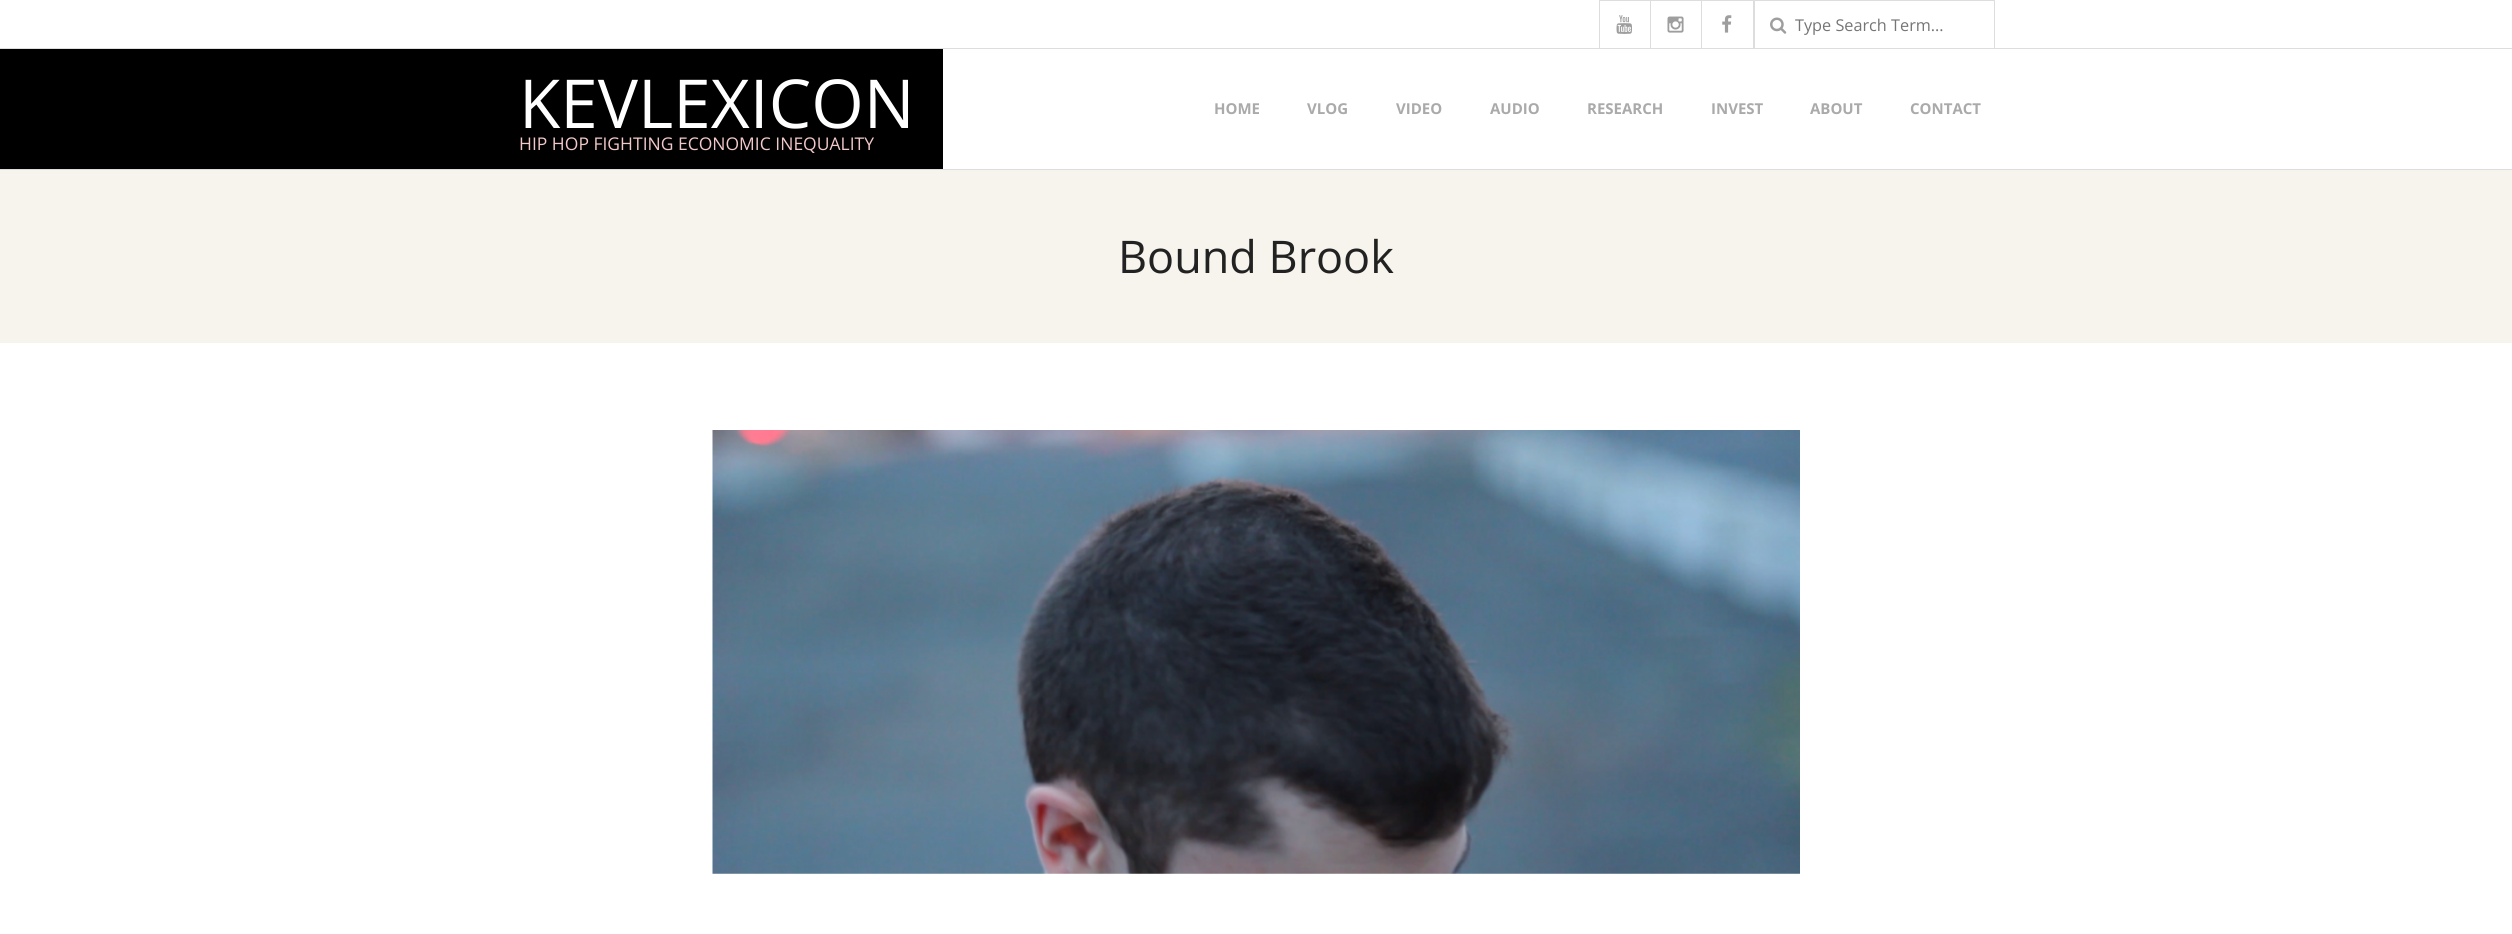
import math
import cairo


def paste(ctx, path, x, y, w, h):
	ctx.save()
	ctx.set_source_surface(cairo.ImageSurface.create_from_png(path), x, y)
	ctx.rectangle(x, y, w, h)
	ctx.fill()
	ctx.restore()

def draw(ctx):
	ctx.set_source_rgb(1, 1, 1)
	ctx.paint()
	ctx.rectangle(1599.5, 0.5, 51, 48)
	ctx.set_source_rgb(0.867, 0.867, 0.867)
	ctx.set_line_width(1)
	ctx.stroke()
	paste(ctx, 'media/1.png', 1616, 15, 16, 19)
	ctx.rectangle(1651, 0, 103, 1)
	ctx.fill()
	ctx.rectangle(1701, 0, 1, 49)
	ctx.fill()
	paste(ctx, 'media/2.png', 1667, 16, 17, 17)
	ctx.rectangle(1753, 0, 1, 49)
	ctx.fill()
	paste(ctx, 'media/3.png', 1722, 15, 10, 18)
	ctx.rectangle(1754.5, 0.5, 240, 48)
	ctx.stroke()
	paste(ctx, 'media/4.png', 1770, 17, 17, 17)
	ctx.select_font_face('Open Sans')
	ctx.set_font_size(16.25)
	ctx.set_source_rgb(0.459, 0.459, 0.459)
	ctx.move_to(1795, 31)
	ctx.show_text('Type Search Term...')
	ctx.set_source_rgb(0.867, 0.867, 0.867)
	ctx.rectangle(0, 48, 2512, 1)
	ctx.rectangle(0, 169, 2512, 1)
	ctx.fill()
	ctx.set_source_rgb(0, 0, 0)
	ctx.rectangle(0, 49, 943, 120)
	ctx.fill()
	ctx.set_font_size(67.5)
	ctx.set_source_rgb(1, 1, 1)
	ctx.move_to(519, 128)
	ctx.show_text('KEVLEXICON')
	ctx.set_font_size(17.5)
	ctx.set_source_rgb(0.949, 0.788, 0.788)
	ctx.move_to(519, 150)
	ctx.show_text('HIP HOP FIGHTING ECONOMIC INEQUALITY')
	ctx.select_font_face('Open Sans', cairo.FONT_SLANT_NORMAL, cairo.FONT_WEIGHT_BOLD)
	ctx.set_font_size(15)
	ctx.set_source_rgb(0.667, 0.667, 0.667)
	for x, y, s in [
		(1214, 114, 'HOME'),
		(1307, 114, 'VLOG'),
		(1396, 114, 'VIDEO'),
		(1490, 114, 'AUDIO'),
		(1587, 114, 'RESEARCH'),
		(1711, 114, 'INVEST'),
		(1810, 114, 'ABOUT'),
		(1910, 114, 'CONTACT'),
	]:
		ctx.move_to(x, y)
		ctx.show_text(s)
	ctx.set_source_rgb(0.965, 0.953, 0.929)
	ctx.rectangle(0, 170, 2512, 173)
	ctx.fill()
	ctx.select_font_face('Open Sans')
	ctx.set_font_size(45)
	ctx.set_source_rgb(0.133, 0.133, 0.133)
	ctx.move_to(1118, 273)
	ctx.show_text('Bound Brook')
	paste(ctx, 'media/5.png', 712, 430, 1088, 444)


surface = cairo.ImageSurface(cairo.FORMAT_RGB24, 2512, 934)
ctx = cairo.Context(surface)
options = cairo.FontOptions()
options.set_hint_metrics(cairo.HINT_METRICS_OFF)
options.set_hint_style(cairo.HINT_STYLE_NONE)
ctx.set_font_options(options)
ctx.set_miter_limit(4)
draw(ctx)
surface.write_to_png('image.png')
